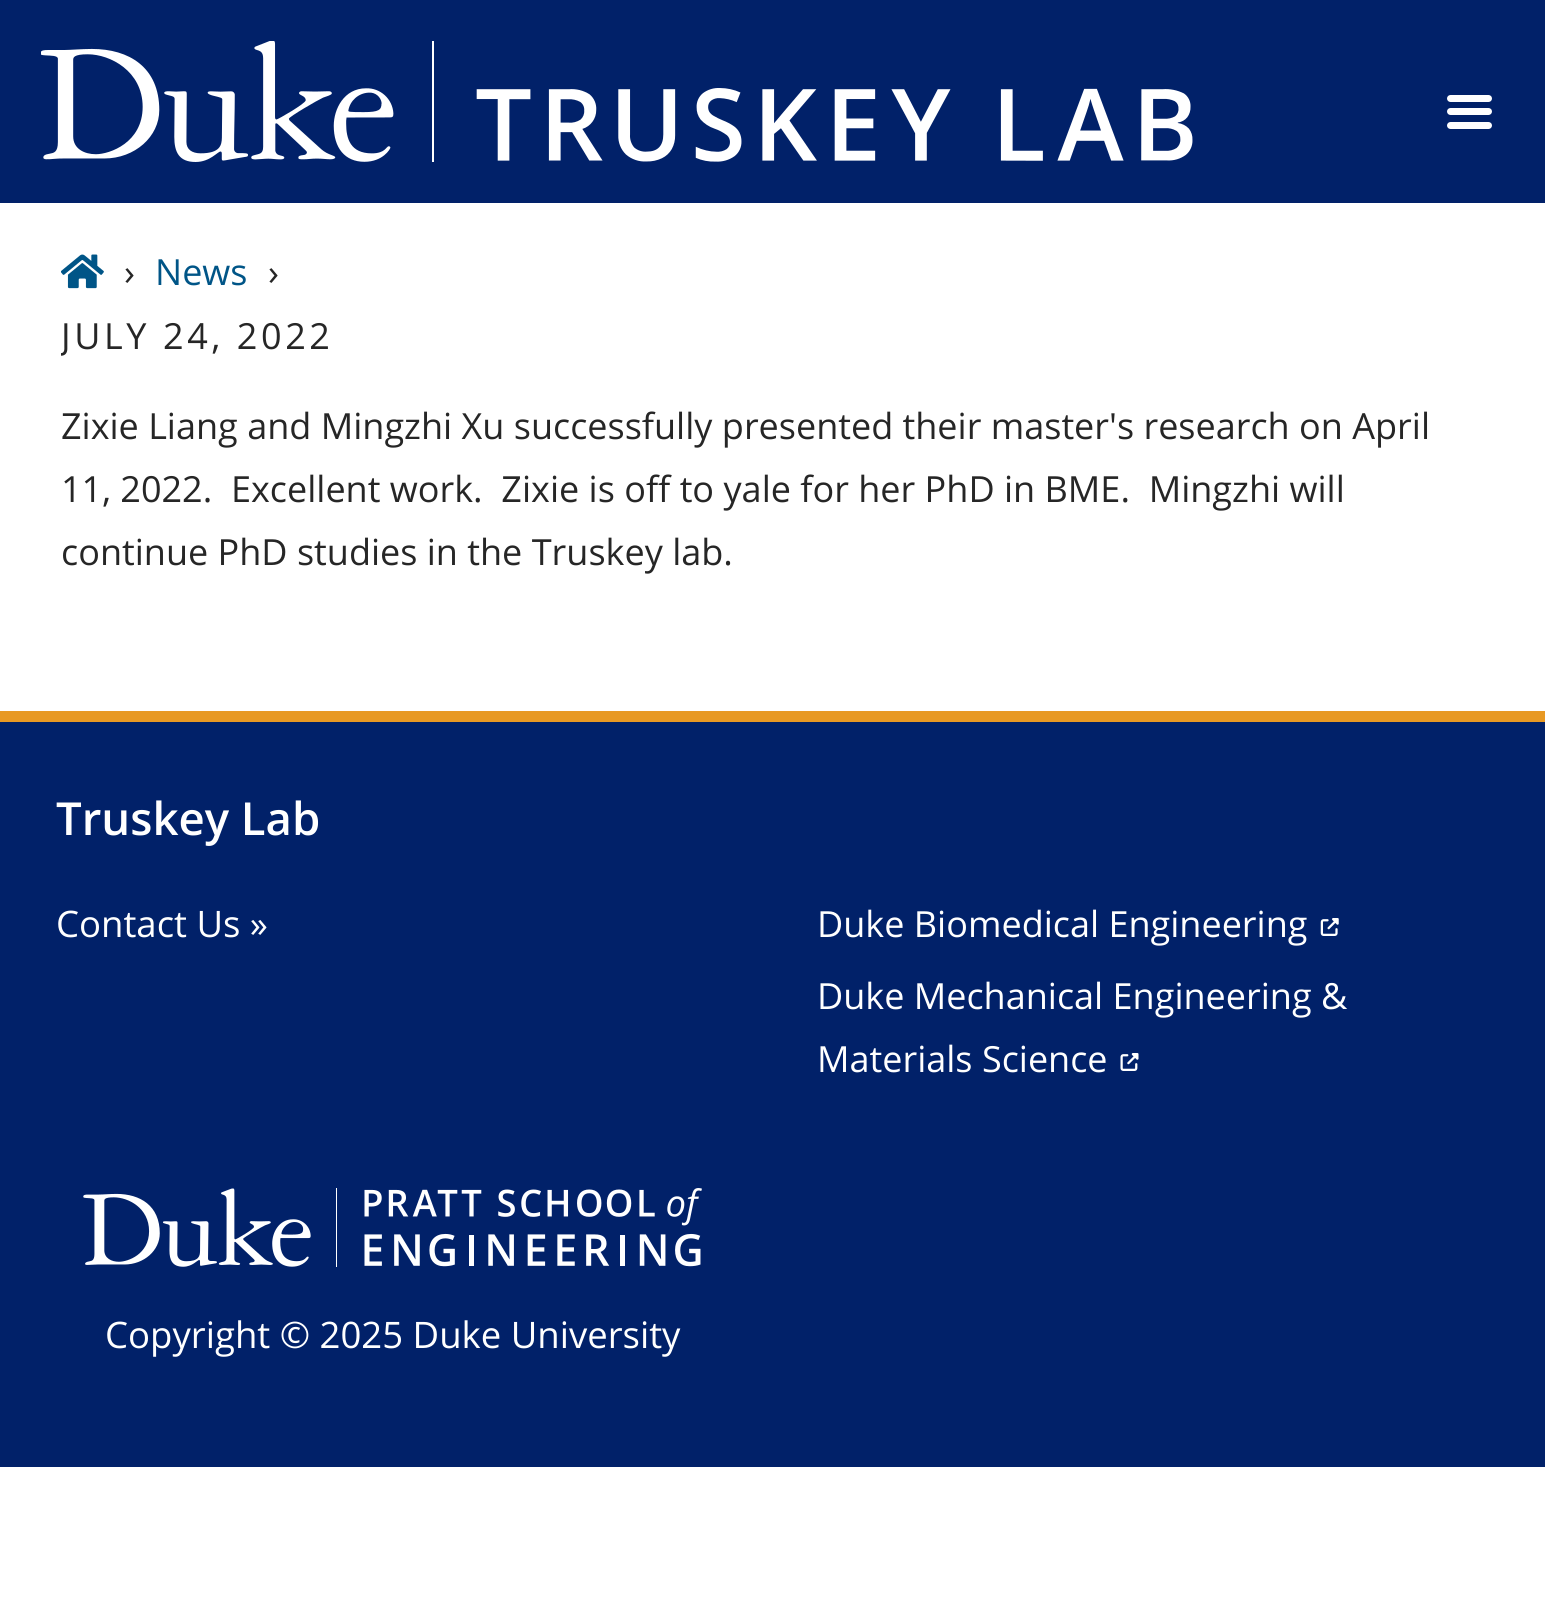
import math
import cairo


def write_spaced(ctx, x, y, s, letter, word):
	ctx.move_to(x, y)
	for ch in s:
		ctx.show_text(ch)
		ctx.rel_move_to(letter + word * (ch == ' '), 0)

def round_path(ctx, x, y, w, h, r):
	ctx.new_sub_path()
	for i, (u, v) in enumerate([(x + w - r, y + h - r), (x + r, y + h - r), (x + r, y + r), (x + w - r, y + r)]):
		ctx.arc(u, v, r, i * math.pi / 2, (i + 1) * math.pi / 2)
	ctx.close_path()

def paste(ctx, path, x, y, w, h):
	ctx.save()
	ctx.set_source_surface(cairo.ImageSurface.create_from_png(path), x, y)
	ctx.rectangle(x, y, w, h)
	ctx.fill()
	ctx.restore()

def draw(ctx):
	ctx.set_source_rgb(1, 1, 1)
	ctx.paint()
	ctx.set_source_rgb(0.004, 0.129, 0.412)
	ctx.rectangle(0, 0, 1545, 203)
	ctx.fill()
	paste(ctx, 'media/1.png', 41, 41, 1152, 121)
	ctx.set_source_rgb(1, 1, 1)
	round_path(ctx, 1447, 95, 45, 7, 3.5)
	ctx.fill()
	round_path(ctx, 1447, 108, 45, 7, 3.5)
	ctx.fill()
	round_path(ctx, 1447, 122, 45, 7, 3.5)
	ctx.fill()
	paste(ctx, 'media/2.png', 61, 254, 43, 35)
	ctx.select_font_face('Open Sans')
	ctx.set_font_size(36)
	ctx.set_source_rgb(0.149, 0.149, 0.149)
	ctx.move_to(124, 285)
	ctx.show_text('›')
	ctx.set_source_rgb(0, 0.333, 0.529)
	ctx.move_to(155, 285)
	ctx.show_text('News')
	ctx.set_source_rgb(0.149, 0.149, 0.149)
	ctx.move_to(268, 285)
	ctx.show_text('›')
	ctx.save()
	ctx.rectangle(61, 203, 1424, 508)
	ctx.clip()
	write_spaced(ctx, 61, 349, 'JULY 24, 2022', 3.6, 0)
	ctx.restore()
	for x, y, s in [
		(61, 439, 'Zixie Liang and Mingzhi Xu successfully presented their master\'s research on April'),
		(61, 502, '11, 2022.  Excellent work.  Zixie is off to yale for her PhD in BME.  Mingzhi will'),
		(61, 565, 'continue PhD studies in the Truskey lab.'),
	]:
		ctx.move_to(x, y)
		ctx.show_text(s)
	ctx.set_source_rgb(0.004, 0.129, 0.412)
	ctx.rectangle(0, 722, 1545, 745)
	ctx.fill()
	ctx.set_source_rgb(0.91, 0.6, 0.137)
	ctx.rectangle(0, 711, 1545, 11)
	ctx.fill()
	ctx.select_font_face('Open Sans SemiBold')
	ctx.set_font_size(45.5)
	ctx.set_source_rgb(1, 1, 1)
	ctx.move_to(56, 835)
	ctx.show_text('Truskey Lab')
	ctx.select_font_face('Open Sans')
	ctx.set_font_size(36.5)
	ctx.move_to(56, 937)
	ctx.show_text('Contact Us »')
	ctx.set_font_size(36)
	ctx.move_to(817, 937)
	ctx.show_text('Duke Biomedical Engineering')
	paste(ctx, 'media/3.png', 1320, 918, 19, 18)
	ctx.move_to(817, 1009)
	ctx.show_text('Duke Mechanical Engineering &')
	ctx.move_to(817, 1072)
	ctx.show_text('Materials Science')
	paste(ctx, 'media/4.png', 1120, 1053, 19, 18)
	paste(ctx, 'media/5.png', 83, 1188, 619, 79)
	ctx.set_font_size(36.5)
	ctx.move_to(105, 1348)
	ctx.show_text('Copyright © 2025 Duke University')


surface = cairo.ImageSurface(cairo.FORMAT_RGB24, 1545, 1610)
ctx = cairo.Context(surface)
options = cairo.FontOptions()
options.set_hint_metrics(cairo.HINT_METRICS_OFF)
options.set_hint_style(cairo.HINT_STYLE_NONE)
ctx.set_font_options(options)
ctx.set_miter_limit(4)
draw(ctx)
surface.write_to_png('image.png')
